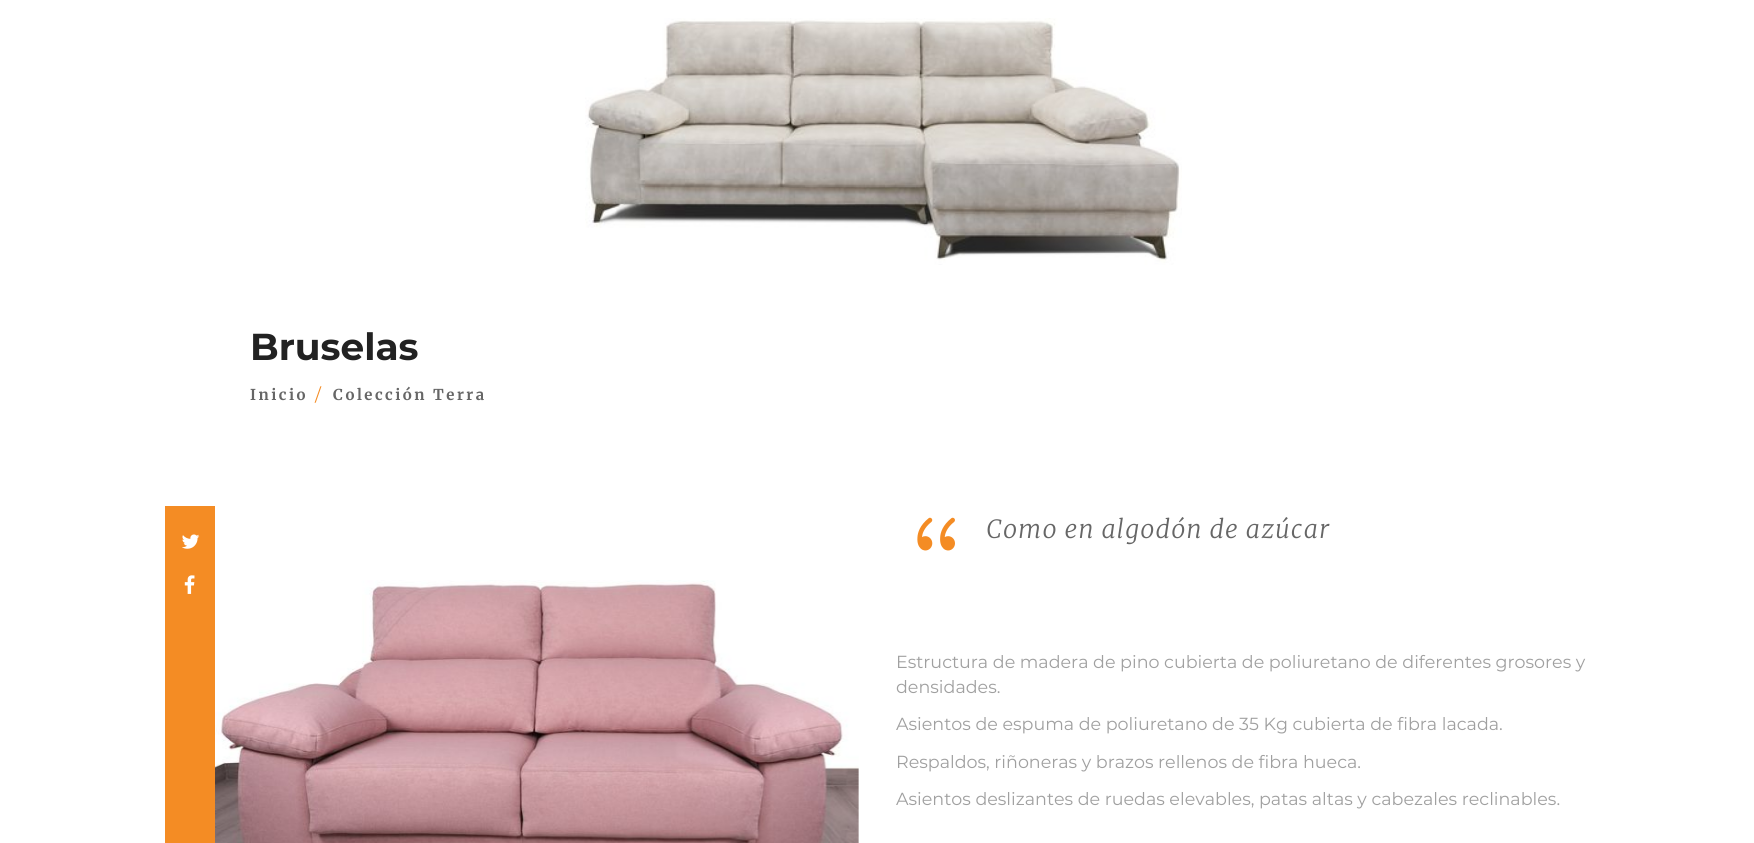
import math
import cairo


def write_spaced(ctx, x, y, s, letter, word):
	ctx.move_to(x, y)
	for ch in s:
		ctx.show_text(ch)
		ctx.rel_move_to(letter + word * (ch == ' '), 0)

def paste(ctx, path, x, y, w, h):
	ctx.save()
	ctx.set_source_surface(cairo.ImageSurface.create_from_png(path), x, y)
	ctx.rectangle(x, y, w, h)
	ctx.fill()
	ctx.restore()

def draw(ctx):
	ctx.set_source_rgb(1, 1, 1)
	ctx.paint()
	paste(ctx, 'media/1.png', 585, 18, 597, 247)
	ctx.select_font_face('Montserrat', cairo.FONT_SLANT_NORMAL, cairo.FONT_WEIGHT_BOLD)
	ctx.set_font_size(37.5)
	ctx.set_source_rgb(0.133, 0.133, 0.133)
	ctx.move_to(250, 360)
	ctx.show_text('Bruselas')
	ctx.select_font_face('Merriweather', cairo.FONT_SLANT_NORMAL, cairo.FONT_WEIGHT_BOLD)
	ctx.set_font_size(15)
	ctx.set_source_rgb(0.4, 0.4, 0.4)
	write_spaced(ctx, 250, 400, 'Inicio', 2.5, 0)
	ctx.select_font_face('Montserrat')
	ctx.set_font_size(17.5)
	ctx.set_source_rgb(0.957, 0.549, 0.141)
	ctx.move_to(315, 401)
	ctx.show_text('/')
	ctx.select_font_face('Merriweather', cairo.FONT_SLANT_NORMAL, cairo.FONT_WEIGHT_BOLD)
	ctx.set_font_size(15)
	ctx.set_source_rgb(0.4, 0.4, 0.4)
	write_spaced(ctx, 333, 400, 'Colección Terra', 2.5, 0)
	ctx.set_source_rgb(0.957, 0.549, 0.141)
	ctx.rectangle(165, 506, 50, 337)
	ctx.fill()
	paste(ctx, 'media/2.png', 182, 534, 18, 15)
	paste(ctx, 'media/3.png', 184, 575, 11, 19)
	paste(ctx, 'media/4.png', 215, 580, 644, 263)
	paste(ctx, 'media/5.png', 917, 517, 38, 34)
	ctx.select_font_face('Merriweather Light', cairo.FONT_SLANT_ITALIC)
	ctx.set_font_size(25)
	ctx.set_source_rgb(0.4, 0.4, 0.4)
	write_spaced(ctx, 986, 538, 'Como en algodón de azúcar', 1.25, 0)
	ctx.select_font_face('Montserrat')
	ctx.set_font_size(17.5)
	ctx.set_source_rgb(0.627, 0.627, 0.627)
	for x, y, s in [
		(896, 668, 'Estructura de madera de pino cubierta de poliuretano de diferentes grosores y'),
		(896, 693, 'densidades.'),
		(896, 730, 'Asientos de espuma de poliuretano de 35 Kg cubierta de fibra lacada.'),
		(896, 768, 'Respaldos, riñoneras y brazos rellenos de fibra hueca.'),
		(896, 805, 'Asientos deslizantes de ruedas elevables, patas altas y cabezales reclinables.'),
	]:
		ctx.move_to(x, y)
		ctx.show_text(s)


surface = cairo.ImageSurface(cairo.FORMAT_RGB24, 1754, 843)
ctx = cairo.Context(surface)
options = cairo.FontOptions()
options.set_hint_metrics(cairo.HINT_METRICS_OFF)
options.set_hint_style(cairo.HINT_STYLE_NONE)
ctx.set_font_options(options)
ctx.set_miter_limit(4)
draw(ctx)
surface.write_to_png('image.png')
